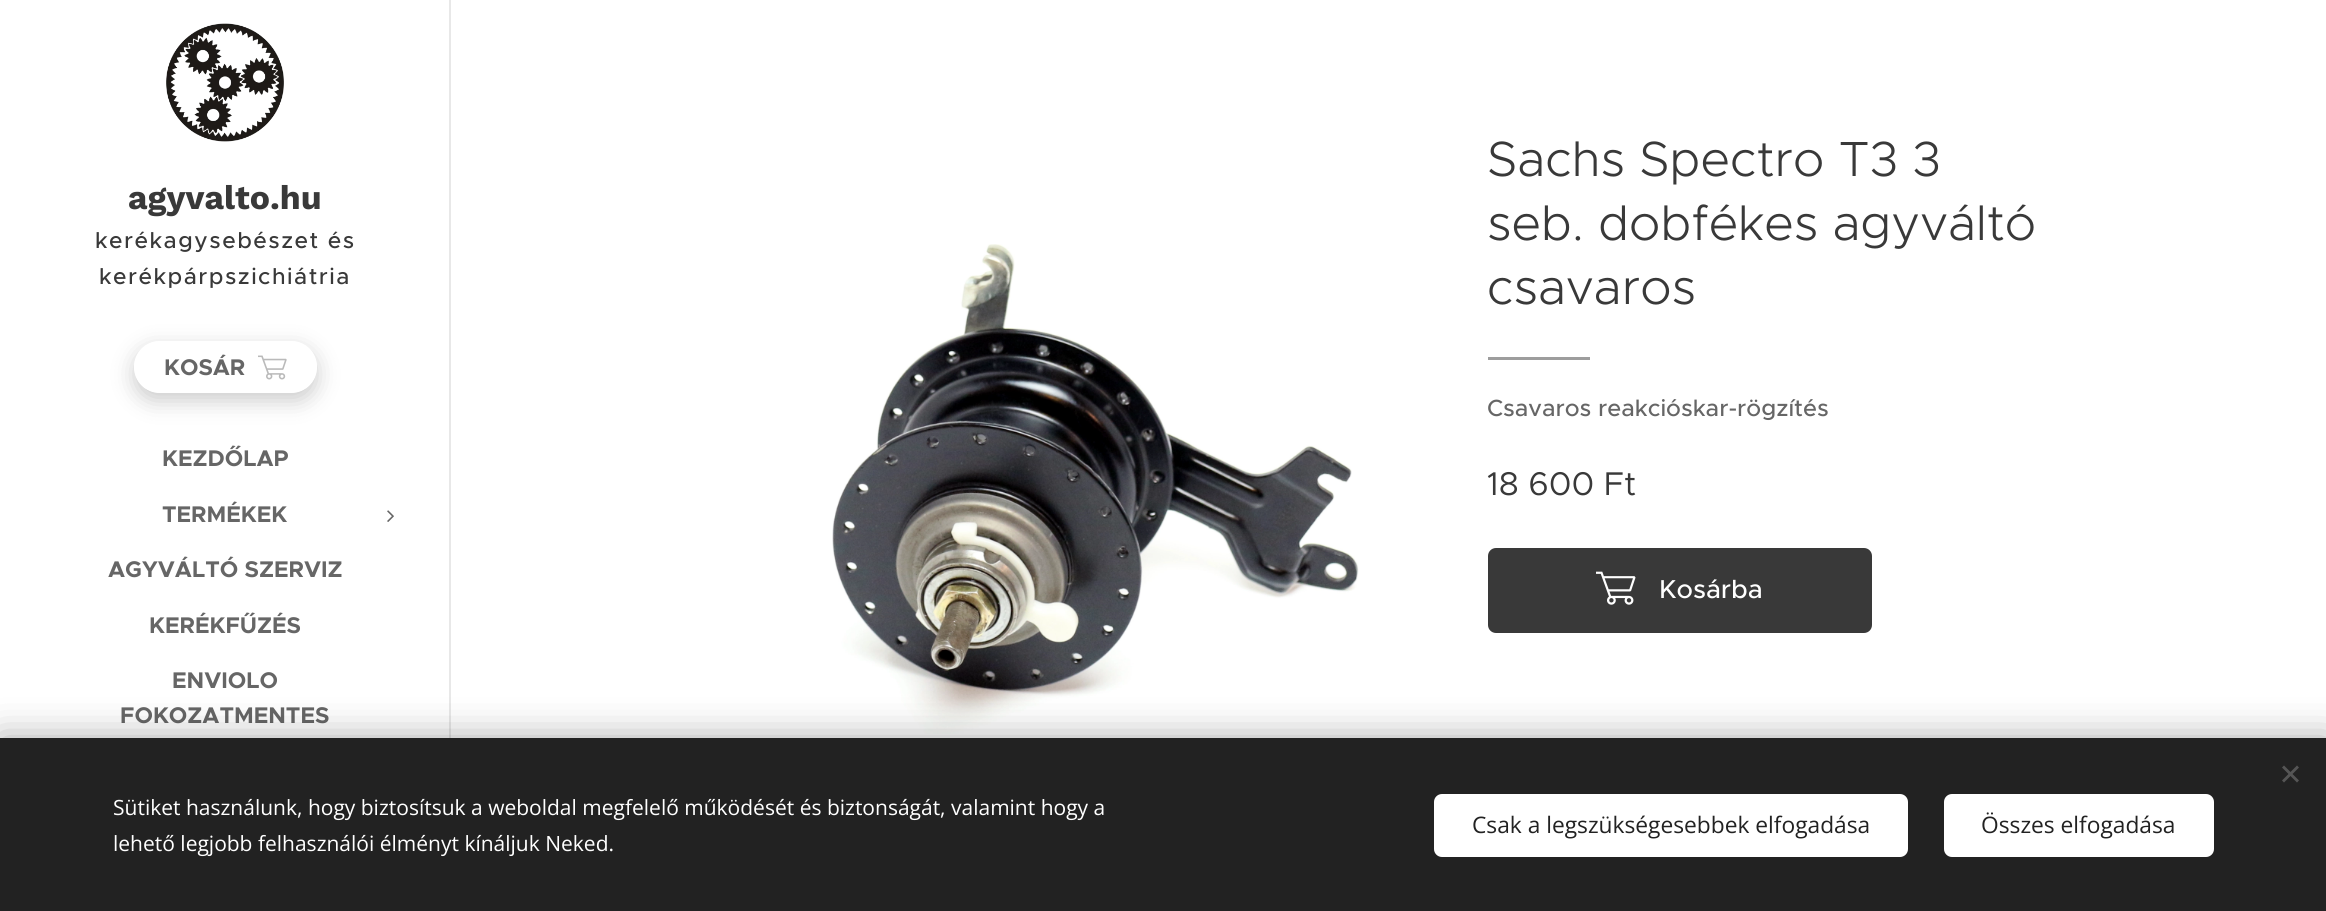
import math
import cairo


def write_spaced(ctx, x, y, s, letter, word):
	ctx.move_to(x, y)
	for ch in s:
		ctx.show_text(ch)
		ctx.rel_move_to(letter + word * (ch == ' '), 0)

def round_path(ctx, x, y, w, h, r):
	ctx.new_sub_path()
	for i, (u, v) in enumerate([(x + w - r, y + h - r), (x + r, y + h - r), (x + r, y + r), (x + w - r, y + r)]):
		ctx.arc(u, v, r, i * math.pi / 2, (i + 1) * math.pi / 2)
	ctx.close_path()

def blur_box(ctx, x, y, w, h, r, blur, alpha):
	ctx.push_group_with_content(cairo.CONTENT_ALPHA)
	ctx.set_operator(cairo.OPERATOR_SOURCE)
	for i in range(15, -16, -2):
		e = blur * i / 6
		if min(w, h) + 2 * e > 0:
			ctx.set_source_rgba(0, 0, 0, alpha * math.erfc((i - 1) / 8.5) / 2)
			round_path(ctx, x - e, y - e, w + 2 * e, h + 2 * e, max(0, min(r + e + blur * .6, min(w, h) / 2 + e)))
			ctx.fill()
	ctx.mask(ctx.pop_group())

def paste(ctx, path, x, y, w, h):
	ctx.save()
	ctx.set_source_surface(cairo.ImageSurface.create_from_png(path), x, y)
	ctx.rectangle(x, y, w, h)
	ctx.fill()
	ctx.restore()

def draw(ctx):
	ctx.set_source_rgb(1, 1, 1)
	ctx.paint()
	paste(ctx, 'media/1.png', 166, 23, 118, 119)
	ctx.select_font_face('Work Sans', cairo.FONT_SLANT_NORMAL, cairo.FONT_WEIGHT_BOLD)
	ctx.set_font_size(33.75)
	ctx.set_source_rgb(0.224, 0.224, 0.224)
	ctx.move_to(128, 209)
	ctx.show_text('agyvalto.hu')
	ctx.select_font_face('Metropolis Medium')
	ctx.set_font_size(22.75)
	write_spaced(ctx, 95, 248, 'kerékagysebészet és', 1.5, 0)
	write_spaced(ctx, 99, 284, 'kerékpárpszichiátria', 1.5, 0)
	ctx.save()
	ctx.set_fill_rule(cairo.FILL_RULE_EVEN_ODD)
	ctx.new_path()
	ctx.move_to(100, 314)
	ctx.line_to(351, 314)
	ctx.line_to(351, 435)
	ctx.line_to(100, 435)
	ctx.close_path()
	ctx.move_to(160, 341)
	ctx.line_to(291, 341)
	ctx.curve_to(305.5, 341, 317, 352.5, 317, 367)
	ctx.curve_to(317, 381.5, 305.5, 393, 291, 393)
	ctx.line_to(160, 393)
	ctx.curve_to(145.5, 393, 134, 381.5, 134, 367)
	ctx.curve_to(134, 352.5, 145.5, 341, 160, 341)
	ctx.close_path()
	ctx.clip()
	ctx.set_source_rgb(0, 0, 0)
	blur_box(ctx, 134, 348, 183, 53, 26, 11, 0.2)
	ctx.restore()
	ctx.select_font_face('Metropolis', cairo.FONT_SLANT_NORMAL, cairo.FONT_WEIGHT_BOLD)
	ctx.set_source_rgb(0.4, 0.4, 0.4)
	ctx.move_to(164, 375)
	ctx.show_text('KOSÁR')
	paste(ctx, 'media/2.png', 258, 355, 29, 25)
	ctx.move_to(162, 466)
	ctx.show_text('KEZDŐLAP')
	ctx.move_to(162, 522)
	ctx.show_text('TERMÉKEK')
	paste(ctx, 'media/3.png', 387, 510, 7, 12)
	for x, y, s in [
		(108, 577, 'AGYVÁLTÓ SZERVIZ'),
		(149, 633, 'KERÉKFŰZÉS'),
		(172, 688, 'ENVIOLO'),
		(120, 723, 'FOKOZATMENTES'),
	]:
		ctx.move_to(x, y)
		ctx.show_text(s)
	ctx.set_source_rgb(0.91, 0.91, 0.91)
	ctx.rectangle(449, 0, 2, 738)
	ctx.fill()
	ctx.select_font_face('Metropolis Light')
	ctx.set_font_size(49.5)
	ctx.set_source_rgb(0.224, 0.224, 0.224)
	for x, y, s in [
		(1487, 176, 'Sachs Spectro T3 3'),
		(1487, 240, 'seb. dobfékes agyváltó'),
		(1487, 304, 'csavaros'),
	]:
		ctx.move_to(x, y)
		ctx.show_text(s)
	ctx.set_source_rgb(0.616, 0.616, 0.616)
	ctx.rectangle(1488, 357, 102, 3)
	ctx.fill()
	paste(ctx, 'media/4.png', 832, 244, 527, 490)
	ctx.select_font_face('Metropolis Medium')
	ctx.set_font_size(23.5)
	ctx.set_source_rgb(0.4, 0.4, 0.4)
	ctx.move_to(1487, 416)
	ctx.show_text('Csavaros reakcióskar-rögzítés')
	ctx.select_font_face('Metropolis')
	ctx.set_font_size(33)
	ctx.set_source_rgb(0.224, 0.224, 0.224)
	ctx.move_to(1487, 495)
	ctx.show_text('18 600 Ft')
	round_path(ctx, 1489, 549, 382, 83, 7)
	ctx.fill_preserve()
	ctx.stroke()
	paste(ctx, 'media/5.png', 1596, 571, 40, 34)
	ctx.select_font_face('Metropolis Medium')
	ctx.set_font_size(26)
	ctx.set_source_rgb(1, 1, 1)
	ctx.move_to(1659, 598)
	ctx.show_text('Kosárba')
	ctx.set_source_rgb(0, 0, 0)
	blur_box(ctx, 0, 738, 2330, 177, 0, 19, 0.33)
	ctx.set_source_rgb(0.133, 0.133, 0.133)
	ctx.rectangle(0, 738, 2326, 173)
	ctx.fill()
	ctx.set_source_rgb(0.333, 0.333, 0.333)
	ctx.new_path()
	ctx.move_to(2282, 780.5)
	ctx.line_to(2297, 765.5)
	ctx.line_to(2299, 767.5)
	ctx.line_to(2284, 782.5)
	ctx.close_path()
	ctx.fill()
	ctx.new_path()
	ctx.move_to(2284, 765.5)
	ctx.line_to(2299, 780.5)
	ctx.line_to(2297, 782.5)
	ctx.line_to(2282, 767.5)
	ctx.close_path()
	ctx.fill()
	ctx.select_font_face('Open Sans')
	ctx.set_font_size(21)
	ctx.set_source_rgb(1, 1, 1)
	ctx.move_to(113, 815)
	ctx.show_text('Sütiket használunk, hogy biztosítsuk a weboldal megfelelő működését és biztonságát, valamint hogy a')
	ctx.move_to(113, 851)
	ctx.show_text('lehető legjobb felhasználói élményt kínáljuk Neked.')
	round_path(ctx, 1434, 794, 474, 63, 8)
	ctx.fill()
	ctx.set_font_size(22.75)
	ctx.set_source_rgb(0.133, 0.133, 0.133)
	ctx.move_to(1472, 833)
	ctx.show_text('Csak a legszükségesebbek elfogadása')
	ctx.set_source_rgb(1, 1, 1)
	round_path(ctx, 1944, 794, 270, 63, 8)
	ctx.fill()
	ctx.set_source_rgb(0.133, 0.133, 0.133)
	ctx.move_to(1981, 833)
	ctx.show_text('Összes elfogadása')


surface = cairo.ImageSurface(cairo.FORMAT_RGB24, 2326, 911)
ctx = cairo.Context(surface)
options = cairo.FontOptions()
options.set_hint_metrics(cairo.HINT_METRICS_OFF)
options.set_hint_style(cairo.HINT_STYLE_NONE)
ctx.set_font_options(options)
ctx.set_miter_limit(4)
draw(ctx)
surface.write_to_png('image.png')
